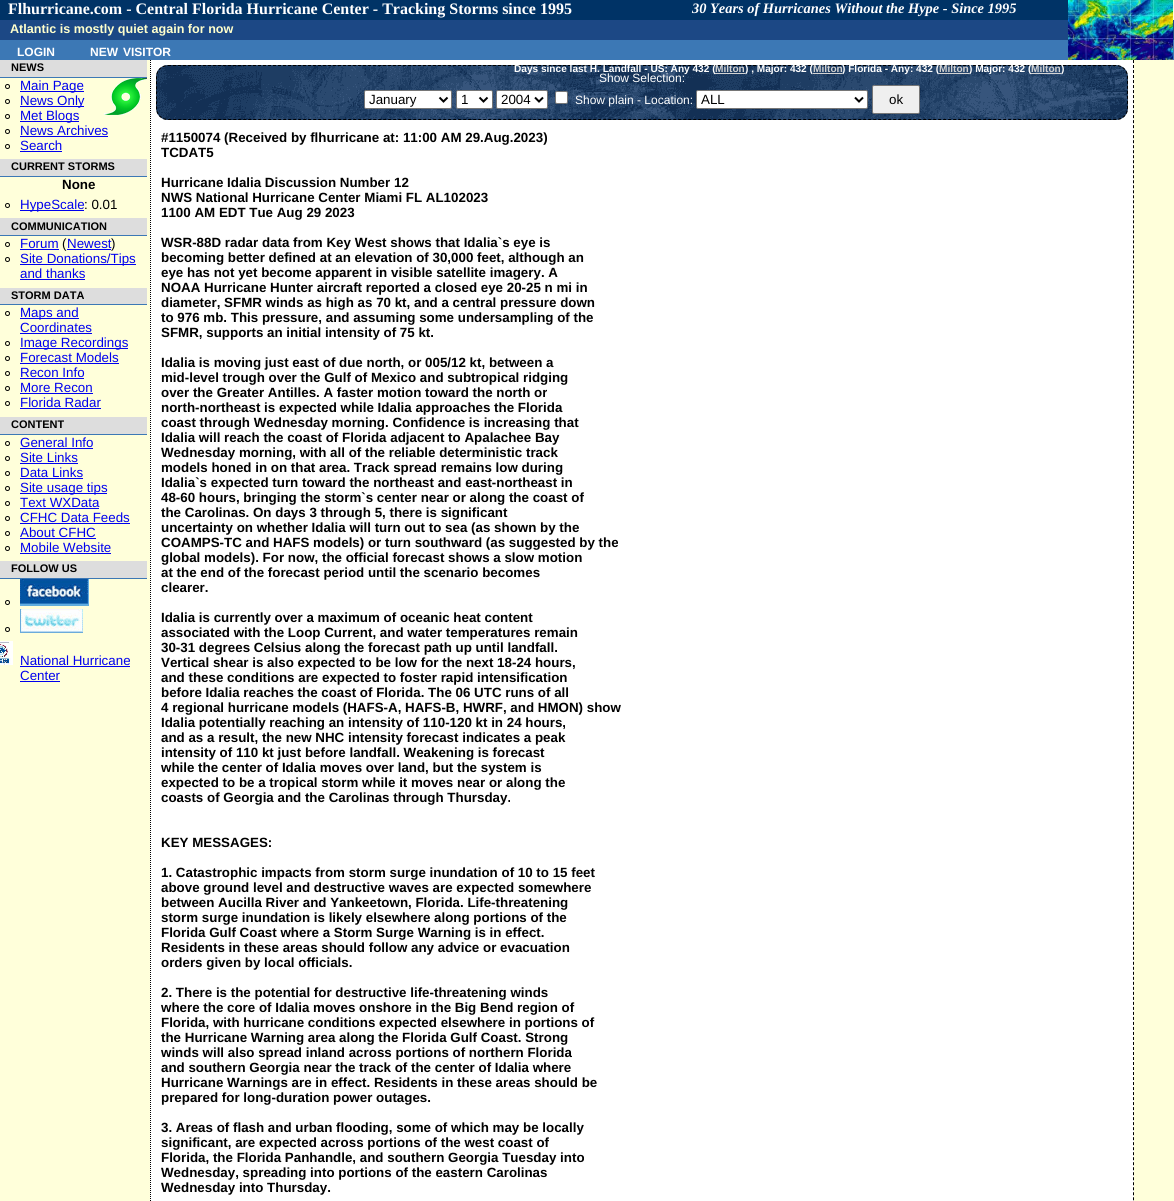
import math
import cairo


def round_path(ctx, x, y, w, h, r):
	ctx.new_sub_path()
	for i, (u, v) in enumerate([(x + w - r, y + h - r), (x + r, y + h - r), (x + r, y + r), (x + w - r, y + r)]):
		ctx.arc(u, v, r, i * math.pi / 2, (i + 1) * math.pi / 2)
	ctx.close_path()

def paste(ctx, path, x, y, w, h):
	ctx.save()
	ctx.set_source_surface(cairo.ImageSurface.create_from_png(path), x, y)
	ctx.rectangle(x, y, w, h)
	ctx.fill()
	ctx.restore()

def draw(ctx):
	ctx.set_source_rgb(1, 1, 0.855)
	ctx.paint()
	ctx.set_source_rgb(0, 0.2, 0.4)
	ctx.rectangle(0, 0, 1068, 20)
	ctx.fill()
	ctx.select_font_face('Liberation Serif', cairo.FONT_SLANT_NORMAL, cairo.FONT_WEIGHT_BOLD)
	ctx.set_font_size(16)
	ctx.set_source_rgb(1, 1, 1)
	ctx.move_to(8, 14)
	ctx.show_text('Flhurricane.com - Central Florida Hurricane Center - Tracking Storms since 1995')
	ctx.select_font_face('Liberation Serif', cairo.FONT_SLANT_ITALIC, cairo.FONT_WEIGHT_BOLD)
	ctx.set_font_size(14.4)
	ctx.move_to(692, 13)
	ctx.show_text('30 Years of Hurricanes Without the Hype - Since 1995')
	ctx.set_source_rgb(0.11, 0.282, 0.522)
	ctx.rectangle(0, 20, 1174, 20)
	ctx.fill()
	ctx.set_source_rgb(0.235, 0.471, 0.71)
	ctx.rectangle(0, 40, 1174, 20)
	ctx.fill()
	paste(ctx, 'media/1.png', 1068, 0, 105, 60)
	ctx.select_font_face('Liberation Sans', cairo.FONT_SLANT_NORMAL, cairo.FONT_WEIGHT_BOLD)
	ctx.set_font_size(12.6)
	ctx.set_source_rgb(1, 1, 0.8)
	ctx.move_to(10, 33)
	ctx.show_text('Atlantic is mostly quiet again for now')
	ctx.set_source_rgb(1, 1, 1)
	ctx.rectangle(150, 60, 984, 1141)
	ctx.fill()
	paste(ctx, 'media/6.png', 156, 65, 972, 55)
	ctx.new_path()
	ctx.move_to(168, 65.5)
	ctx.line_to(1116, 65.5)
	ctx.curve_to(1122.5, 65.5, 1127.5, 70.5, 1127.5, 77)
	ctx.line_to(1127.5, 108)
	ctx.curve_to(1127.5, 114.5, 1122.5, 119.5, 1116, 119.5)
	ctx.line_to(168, 119.5)
	ctx.curve_to(161.5, 119.5, 156.5, 114.5, 156.5, 108)
	ctx.line_to(156.5, 77)
	ctx.curve_to(156.5, 70.5, 161.5, 65.5, 168, 65.5)
	ctx.close_path()
	ctx.set_source_rgb(0, 0, 0)
	ctx.set_line_width(1)
	ctx.set_dash([3, 2])
	ctx.stroke()
	ctx.set_font_size(10.1)
	ctx.set_source_rgb(1, 1, 1)
	ctx.move_to(514, 72)
	ctx.show_text('Days since last H. Landfall - US: Any 432 (')
	ctx.set_source_rgb(0.827, 0.827, 0.827)
	ctx.move_to(715, 72)
	ctx.show_text('Milton')
	ctx.rectangle(715, 73, 30, 1)
	ctx.fill()
	ctx.set_source_rgb(1, 1, 1)
	ctx.move_to(745, 72)
	ctx.show_text(') , Major: 432 (')
	ctx.set_source_rgb(0.827, 0.827, 0.827)
	ctx.move_to(813, 72)
	ctx.show_text('Milton')
	ctx.set_source_rgb(1, 1, 1)
	ctx.move_to(842, 72)
	ctx.show_text(') Florida - Any: 432 (')
	ctx.set_source_rgb(0.827, 0.827, 0.827)
	ctx.rectangle(813, 73, 29, 1)
	ctx.fill()
	ctx.move_to(939, 72)
	ctx.show_text('Milton')
	ctx.rectangle(939, 73, 30, 1)
	ctx.fill()
	ctx.set_source_rgb(1, 1, 1)
	ctx.move_to(969, 72)
	ctx.show_text(') Major: 432 (')
	ctx.set_source_rgb(0.827, 0.827, 0.827)
	ctx.rectangle(1031, 73, 30, 1)
	ctx.fill()
	ctx.move_to(1031, 72)
	ctx.show_text('Milton')
	ctx.set_source_rgb(1, 1, 1)
	ctx.move_to(1061, 72)
	ctx.show_text(')')
	ctx.set_font_size(12)
	for x, y, s in [
		(17, 56, 'LOGIN'),
		(90, 56, 'NEW'),
		(123, 56, 'VISITOR'),
	]:
		ctx.move_to(x, y)
		ctx.show_text(s)
	ctx.set_source_rgb(0.867, 0.867, 0.867)
	ctx.rectangle(0, 60, 147, 17)
	ctx.fill()
	ctx.set_source_rgb(0.235, 0.471, 0.71)
	ctx.rectangle(0, 77, 147, 1)
	ctx.fill()
	ctx.set_font_size(11)
	ctx.set_source_rgb(0, 0, 0)
	ctx.move_to(11, 71)
	ctx.show_text('NEWS')
	paste(ctx, 'media/2.png', 104, 78, 43, 37)
	ctx.arc(7.5, 86.5, 2, 0, 2 * math.pi)
	ctx.set_dash([])
	ctx.stroke()
	ctx.set_source_rgb(0, 0, 0.933)
	ctx.rectangle(20, 91, 64, 1)
	ctx.fill()
	ctx.select_font_face('Liberation Sans')
	ctx.set_font_size(13.35)
	ctx.move_to(20, 90)
	ctx.show_text('Main Page')
	ctx.new_path()
	ctx.arc(7.5, 101.5, 2, 0, 2 * math.pi)
	ctx.set_source_rgb(0, 0, 0)
	ctx.stroke()
	ctx.set_source_rgb(0, 0, 0.933)
	ctx.rectangle(20, 106, 64, 1)
	ctx.fill()
	ctx.move_to(20, 105)
	ctx.show_text('News Only')
	ctx.new_path()
	ctx.arc(7.5, 116.5, 2, 0, 2 * math.pi)
	ctx.set_source_rgb(0, 0, 0)
	ctx.stroke()
	ctx.set_source_rgb(0, 0, 0.933)
	ctx.rectangle(20, 121, 59, 1)
	ctx.fill()
	ctx.move_to(20, 120)
	ctx.show_text('Met Blogs')
	ctx.new_path()
	ctx.arc(7.5, 131.5, 2, 0, 2 * math.pi)
	ctx.set_source_rgb(0, 0, 0)
	ctx.stroke()
	ctx.set_source_rgb(0, 0, 0.933)
	ctx.move_to(20, 135)
	ctx.show_text('News Archives')
	ctx.rectangle(20, 136, 88, 1)
	ctx.fill()
	ctx.arc(7.5, 146.5, 2, 0, 2 * math.pi)
	ctx.set_source_rgb(0, 0, 0)
	ctx.stroke()
	ctx.set_source_rgb(0, 0, 0.933)
	ctx.move_to(20, 150)
	ctx.show_text('Search')
	ctx.rectangle(20, 151, 42, 1)
	ctx.fill()
	ctx.set_source_rgb(0.867, 0.867, 0.867)
	ctx.rectangle(0, 159, 147, 17)
	ctx.fill()
	ctx.set_source_rgb(0.235, 0.471, 0.71)
	ctx.rectangle(0, 176, 147, 1)
	ctx.fill()
	ctx.select_font_face('Liberation Sans', cairo.FONT_SLANT_NORMAL, cairo.FONT_WEIGHT_BOLD)
	ctx.set_font_size(11)
	ctx.set_source_rgb(0, 0, 0)
	ctx.move_to(11, 170)
	ctx.show_text('CURRENT STORMS')
	ctx.set_font_size(13.35)
	ctx.move_to(62, 189)
	ctx.show_text('None')
	ctx.new_path()
	ctx.arc(7.5, 205.5, 2, 0, 2 * math.pi)
	ctx.stroke()
	ctx.set_source_rgb(0, 0, 0.933)
	ctx.rectangle(20, 210, 64, 1)
	ctx.fill()
	ctx.select_font_face('Liberation Sans')
	ctx.move_to(20, 209)
	ctx.show_text('HypeScale')
	ctx.set_source_rgb(0, 0, 0)
	ctx.move_to(84, 209)
	ctx.show_text(': 0.01')
	ctx.set_source_rgb(0.867, 0.867, 0.867)
	ctx.rectangle(0, 218, 147, 17)
	ctx.fill()
	ctx.set_source_rgb(0.235, 0.471, 0.71)
	ctx.rectangle(0, 235, 147, 1)
	ctx.fill()
	ctx.select_font_face('Liberation Sans', cairo.FONT_SLANT_NORMAL, cairo.FONT_WEIGHT_BOLD)
	ctx.set_font_size(11)
	ctx.set_source_rgb(0, 0, 0)
	ctx.move_to(11, 230)
	ctx.show_text('COMMUNICATION')
	ctx.new_path()
	ctx.arc(7.5, 244.5, 2, 0, 2 * math.pi)
	ctx.stroke()
	ctx.select_font_face('Liberation Sans')
	ctx.set_font_size(13.35)
	ctx.set_source_rgb(0, 0, 0.933)
	ctx.move_to(20, 248)
	ctx.show_text('Forum')
	ctx.rectangle(20, 249, 39, 1)
	ctx.fill()
	ctx.set_source_rgb(0, 0, 0)
	ctx.move_to(62, 248)
	ctx.show_text('(')
	ctx.set_source_rgb(0, 0, 0.933)
	ctx.move_to(67, 248)
	ctx.show_text('Newest')
	ctx.rectangle(67, 249, 44, 1)
	ctx.fill()
	ctx.set_source_rgb(0, 0, 0)
	ctx.move_to(111, 248)
	ctx.show_text(')')
	ctx.new_path()
	ctx.arc(7.5, 259.5, 2, 0, 2 * math.pi)
	ctx.stroke()
	ctx.set_source_rgb(0, 0, 0.933)
	ctx.rectangle(20, 264, 116, 1)
	ctx.fill()
	ctx.move_to(20, 263)
	ctx.show_text('Site Donations/Tips')
	ctx.move_to(20, 278)
	ctx.show_text('and thanks')
	ctx.rectangle(20, 279, 65, 1)
	ctx.fill()
	ctx.set_source_rgb(0.867, 0.867, 0.867)
	ctx.rectangle(0, 288, 147, 16)
	ctx.fill()
	ctx.set_source_rgb(0.235, 0.471, 0.71)
	ctx.rectangle(0, 304, 147, 1)
	ctx.fill()
	ctx.select_font_face('Liberation Sans', cairo.FONT_SLANT_NORMAL, cairo.FONT_WEIGHT_BOLD)
	ctx.set_font_size(11)
	ctx.set_source_rgb(0, 0, 0)
	ctx.move_to(11, 299)
	ctx.show_text('STORM DATA')
	ctx.new_path()
	ctx.arc(7.5, 313.5, 2, 0, 2 * math.pi)
	ctx.stroke()
	ctx.set_source_rgb(0, 0, 0.933)
	ctx.rectangle(20, 318, 59, 1)
	ctx.fill()
	ctx.select_font_face('Liberation Sans')
	ctx.set_font_size(13.35)
	ctx.move_to(20, 317)
	ctx.show_text('Maps and')
	ctx.move_to(20, 332)
	ctx.show_text('Coordinates')
	ctx.rectangle(20, 333, 72, 1)
	ctx.fill()
	ctx.arc(7.5, 343.5, 2, 0, 2 * math.pi)
	ctx.set_source_rgb(0, 0, 0)
	ctx.stroke()
	ctx.set_source_rgb(0, 0, 0.933)
	ctx.rectangle(20, 348, 108, 1)
	ctx.fill()
	ctx.move_to(20, 347)
	ctx.show_text('Image Recordings')
	ctx.new_path()
	ctx.arc(7.5, 358.5, 2, 0, 2 * math.pi)
	ctx.set_source_rgb(0, 0, 0)
	ctx.stroke()
	ctx.set_source_rgb(0, 0, 0.933)
	ctx.move_to(20, 362)
	ctx.show_text('Forecast Models')
	ctx.rectangle(20, 363, 99, 1)
	ctx.fill()
	ctx.arc(7.5, 373.5, 2, 0, 2 * math.pi)
	ctx.set_source_rgb(0, 0, 0)
	ctx.stroke()
	ctx.set_source_rgb(0, 0, 0.933)
	ctx.move_to(20, 377)
	ctx.show_text('Recon Info')
	ctx.rectangle(20, 378, 64, 1)
	ctx.fill()
	ctx.arc(7.5, 388.5, 2, 0, 2 * math.pi)
	ctx.set_source_rgb(0, 0, 0)
	ctx.stroke()
	ctx.set_source_rgb(0, 0, 0.933)
	ctx.move_to(20, 392)
	ctx.show_text('More Recon')
	ctx.rectangle(20, 393, 73, 1)
	ctx.fill()
	ctx.arc(7.5, 403.5, 2, 0, 2 * math.pi)
	ctx.set_source_rgb(0, 0, 0)
	ctx.stroke()
	ctx.set_source_rgb(0, 0, 0.933)
	ctx.move_to(20, 407)
	ctx.show_text('Florida Radar')
	ctx.rectangle(20, 408, 81, 1)
	ctx.fill()
	ctx.set_source_rgb(0.867, 0.867, 0.867)
	ctx.rectangle(0, 417, 147, 17)
	ctx.fill()
	ctx.set_source_rgb(0.235, 0.471, 0.71)
	ctx.rectangle(0, 434, 147, 1)
	ctx.fill()
	ctx.select_font_face('Liberation Sans', cairo.FONT_SLANT_NORMAL, cairo.FONT_WEIGHT_BOLD)
	ctx.set_font_size(11)
	ctx.set_source_rgb(0, 0, 0)
	ctx.move_to(11, 428)
	ctx.show_text('CONTENT')
	ctx.new_path()
	ctx.arc(7.5, 443.5, 2, 0, 2 * math.pi)
	ctx.stroke()
	ctx.select_font_face('Liberation Sans')
	ctx.set_font_size(13.35)
	ctx.set_source_rgb(0, 0, 0.933)
	ctx.move_to(20, 447)
	ctx.show_text('General Info')
	ctx.rectangle(20, 448, 73, 1)
	ctx.fill()
	ctx.arc(7.5, 458.5, 2, 0, 2 * math.pi)
	ctx.set_source_rgb(0, 0, 0)
	ctx.stroke()
	ctx.set_source_rgb(0, 0, 0.933)
	ctx.move_to(20, 462)
	ctx.show_text('Site Links')
	ctx.rectangle(20, 463, 58, 1)
	ctx.fill()
	ctx.arc(7.5, 473.5, 2, 0, 2 * math.pi)
	ctx.set_source_rgb(0, 0, 0)
	ctx.stroke()
	ctx.set_source_rgb(0, 0, 0.933)
	ctx.move_to(20, 477)
	ctx.show_text('Data Links')
	ctx.rectangle(20, 478, 63, 1)
	ctx.fill()
	ctx.arc(7.5, 488.5, 2, 0, 2 * math.pi)
	ctx.set_source_rgb(0, 0, 0)
	ctx.stroke()
	ctx.set_source_rgb(0, 0, 0.933)
	ctx.rectangle(20, 493, 87, 1)
	ctx.fill()
	ctx.move_to(20, 492)
	ctx.show_text('Site usage tips')
	ctx.new_path()
	ctx.arc(7.5, 503.5, 2, 0, 2 * math.pi)
	ctx.set_source_rgb(0, 0, 0)
	ctx.stroke()
	ctx.set_source_rgb(0, 0, 0.933)
	ctx.move_to(20, 507)
	ctx.show_text('Text WXData')
	ctx.rectangle(20, 508, 79, 1)
	ctx.fill()
	ctx.arc(7.5, 518.5, 2, 0, 2 * math.pi)
	ctx.set_source_rgb(0, 0, 0)
	ctx.stroke()
	ctx.set_source_rgb(0, 0, 0.933)
	ctx.move_to(20, 522)
	ctx.show_text('CFHC Data Feeds')
	ctx.rectangle(20, 523, 110, 1)
	ctx.fill()
	ctx.arc(7.5, 533.5, 2, 0, 2 * math.pi)
	ctx.set_source_rgb(0, 0, 0)
	ctx.stroke()
	ctx.set_source_rgb(0, 0, 0.933)
	ctx.move_to(20, 537)
	ctx.show_text('About CFHC')
	ctx.rectangle(20, 538, 76, 1)
	ctx.fill()
	ctx.arc(7.5, 548.5, 2, 0, 2 * math.pi)
	ctx.set_source_rgb(0, 0, 0)
	ctx.stroke()
	ctx.set_source_rgb(0, 0, 0.933)
	ctx.move_to(20, 552)
	ctx.show_text('Mobile Website')
	ctx.rectangle(20, 553, 91, 1)
	ctx.fill()
	ctx.set_source_rgb(0.867, 0.867, 0.867)
	ctx.rectangle(0, 561, 147, 17)
	ctx.fill()
	ctx.set_source_rgb(0.235, 0.471, 0.71)
	ctx.rectangle(0, 578, 147, 1)
	ctx.fill()
	ctx.select_font_face('Liberation Sans', cairo.FONT_SLANT_NORMAL, cairo.FONT_WEIGHT_BOLD)
	ctx.set_font_size(11)
	ctx.set_source_rgb(0, 0, 0)
	ctx.move_to(11, 572)
	ctx.show_text('FOLLOW US')
	ctx.new_path()
	ctx.arc(7.5, 602.5, 2, 0, 2 * math.pi)
	ctx.stroke()
	paste(ctx, 'media/3.png', 20, 579, 69, 27)
	ctx.arc(7.5, 629.5, 2, 0, 2 * math.pi)
	ctx.stroke()
	paste(ctx, 'media/4.png', 20, 609, 63, 24)
	paste(ctx, 'media/5.png', 0, 641, 13, 24)
	ctx.select_font_face('Liberation Sans')
	ctx.set_font_size(13.35)
	ctx.set_source_rgb(0, 0, 0.933)
	ctx.move_to(20, 665)
	ctx.show_text('National Hurricane')
	ctx.rectangle(20, 666, 110, 1)
	ctx.fill()
	ctx.move_to(20, 680)
	ctx.show_text('Center')
	ctx.rectangle(20, 681, 40, 1)
	ctx.fill()
	ctx.new_path()
	ctx.move_to(1133.5, 60)
	ctx.line_to(1133.5, 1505)
	ctx.set_source_rgb(0, 0, 0)
	ctx.set_dash([3, 2.01])
	ctx.stroke()
	ctx.new_path()
	ctx.move_to(150.5, 60)
	ctx.line_to(150.5, 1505)
	ctx.set_dash([1, 1])
	ctx.stroke()
	ctx.set_font_size(12)
	ctx.set_source_rgb(1, 1, 1)
	ctx.move_to(599, 82)
	ctx.show_text('Show Selection:')
	round_path(ctx, 364.5, 90.5, 87, 18, 1.5)
	ctx.fill_preserve()
	ctx.set_source_rgb(0.463, 0.463, 0.463)
	ctx.set_dash([])
	ctx.stroke()
	ctx.new_path()
	ctx.move_to(439.5, 97.5)
	ctx.line_to(443.5, 101.5)
	ctx.line_to(447.5, 97.5)
	ctx.set_source_rgb(0, 0, 0)
	ctx.set_line_width(2)
	ctx.stroke()
	ctx.set_font_size(13.35)
	ctx.move_to(369, 104)
	ctx.show_text('January')
	ctx.set_source_rgb(1, 1, 1)
	round_path(ctx, 456.5, 90.5, 36, 18, 1.5)
	ctx.fill_preserve()
	ctx.set_source_rgb(0.463, 0.463, 0.463)
	ctx.set_line_width(1)
	ctx.stroke()
	ctx.new_path()
	ctx.move_to(479.5, 97.5)
	ctx.line_to(483.5, 101.5)
	ctx.line_to(487.5, 97.5)
	ctx.set_source_rgb(0, 0, 0)
	ctx.set_line_width(2)
	ctx.stroke()
	ctx.move_to(461, 104)
	ctx.show_text('1')
	ctx.set_source_rgb(1, 1, 1)
	round_path(ctx, 496.5, 90.5, 51, 18, 1.5)
	ctx.fill_preserve()
	ctx.set_source_rgb(0.463, 0.463, 0.463)
	ctx.set_line_width(1)
	ctx.stroke()
	ctx.new_path()
	ctx.move_to(535, 97.5)
	ctx.line_to(539, 101.5)
	ctx.line_to(543, 97.5)
	ctx.set_source_rgb(0, 0, 0)
	ctx.set_line_width(2)
	ctx.stroke()
	ctx.move_to(501, 104)
	ctx.show_text('2004')
	ctx.set_source_rgb(1, 1, 1)
	round_path(ctx, 555.5, 91.5, 12, 12, 1.5)
	ctx.fill_preserve()
	ctx.set_source_rgb(0.463, 0.463, 0.463)
	ctx.set_line_width(1)
	ctx.stroke()
	ctx.set_font_size(12)
	ctx.set_source_rgb(1, 1, 1)
	ctx.move_to(575, 104)
	ctx.show_text('Show plain - Location:')
	round_path(ctx, 696.5, 90.5, 171, 18, 1.5)
	ctx.fill_preserve()
	ctx.set_source_rgb(0.463, 0.463, 0.463)
	ctx.stroke()
	ctx.new_path()
	ctx.move_to(855, 97.5)
	ctx.line_to(859, 101.5)
	ctx.line_to(863, 97.5)
	ctx.set_source_rgb(0, 0, 0)
	ctx.set_line_width(2)
	ctx.stroke()
	ctx.set_font_size(13.35)
	ctx.move_to(701, 104)
	ctx.show_text('ALL')
	ctx.set_source_rgb(0.937, 0.937, 0.937)
	round_path(ctx, 872.5, 85.5, 47, 28, 1.5)
	ctx.fill_preserve()
	ctx.set_source_rgb(0.463, 0.463, 0.463)
	ctx.set_line_width(1)
	ctx.stroke()
	ctx.set_source_rgb(0, 0, 0)
	ctx.move_to(889, 104)
	ctx.show_text('ok')
	ctx.select_font_face('Liberation Sans', cairo.FONT_SLANT_NORMAL, cairo.FONT_WEIGHT_BOLD)
	for x, y, s in [
		(161, 142, '#1150074 (Received by flhurricane at: 11:00 AM 29.Aug.2023)'),
		(161, 157, 'TCDAT5'),
		(161, 187, 'Hurricane Idalia Discussion Number 12'),
		(161, 202, 'NWS National Hurricane Center Miami FL AL102023'),
		(161, 217, '1100 AM EDT Tue Aug 29 2023'),
		(161, 247, 'WSR-88D radar data from Key West shows that Idalia`s eye is'),
		(161, 262, 'becoming better defined at an elevation of 30,000 feet, although an'),
		(161, 277, 'eye has not yet become apparent in visible satellite imagery. A'),
		(161, 292, 'NOAA Hurricane Hunter aircraft reported a closed eye 20-25 n mi in'),
		(161, 307, 'diameter, SFMR winds as high as 70 kt, and a central pressure down'),
		(161, 322, 'to 976 mb. This pressure, and assuming some undersampling of the'),
		(161, 337, 'SFMR, supports an initial intensity of 75 kt.'),
		(161, 367, 'Idalia is moving just east of due north, or 005/12 kt, between a'),
		(161, 382, 'mid-level trough over the Gulf of Mexico and subtropical ridging'),
		(161, 397, 'over the Greater Antilles. A faster motion toward the north or'),
		(161, 412, 'north-northeast is expected while Idalia approaches the Florida'),
		(161, 427, 'coast through Wednesday morning. Confidence is increasing that'),
		(161, 442, 'Idalia will reach the coast of Florida adjacent to Apalachee Bay'),
		(161, 457, 'Wednesday morning, with all of the reliable deterministic track'),
		(161, 472, 'models honed in on that area. Track spread remains low during'),
		(161, 487, 'Idalia`s expected turn toward the northeast and east-northeast in'),
		(161, 502, '48-60 hours, bringing the storm`s center near or along the coast of'),
		(161, 517, 'the Carolinas. On days 3 through 5, there is significant'),
		(161, 532, 'uncertainty on whether Idalia will turn out to sea (as shown by the'),
		(161, 547, 'COAMPS-TC and HAFS models) or turn southward (as suggested by the'),
		(161, 562, 'global models). For now, the official forecast shows a slow motion'),
		(161, 577, 'at the end of the forecast period until the scenario becomes'),
		(161, 592, 'clearer.'),
		(161, 622, 'Idalia is currently over a maximum of oceanic heat content'),
		(161, 637, 'associated with the Loop Current, and water temperatures remain'),
		(161, 652, '30-31 degrees Celsius along the forecast path up until landfall.'),
		(161, 667, 'Vertical shear is also expected to be low for the next 18-24 hours,'),
		(161, 682, 'and these conditions are expected to foster rapid intensification'),
		(161, 697, 'before Idalia reaches the coast of Florida. The 06 UTC runs of all'),
		(161, 712, '4 regional hurricane models (HAFS-A, HAFS-B, HWRF, and HMON) show'),
		(161, 727, 'Idalia potentially reaching an intensity of 110-120 kt in 24 hours,'),
		(161, 742, 'and as a result, the new NHC intensity forecast indicates a peak'),
		(161, 757, 'intensity of 110 kt just before landfall. Weakening is forecast'),
		(161, 772, 'while the center of Idalia moves over land, but the system is'),
		(161, 787, 'expected to be a tropical storm while it moves near or along the'),
		(161, 802, 'coasts of Georgia and the Carolinas through Thursday.'),
		(161, 847, 'KEY MESSAGES:'),
		(161, 877, '1. Catastrophic impacts from storm surge inundation of 10 to 15 feet'),
		(161, 892, 'above ground level and destructive waves are expected somewhere'),
		(161, 907, 'between Aucilla River and Yankeetown, Florida. Life-threatening'),
		(161, 922, 'storm surge inundation is likely elsewhere along portions of the'),
		(161, 937, 'Florida Gulf Coast where a Storm Surge Warning is in effect.'),
		(161, 952, 'Residents in these areas should follow any advice or evacuation'),
		(161, 967, 'orders given by local officials.'),
		(161, 997, '2. There is the potential for destructive life-threatening winds'),
		(161, 1012, 'where the core of Idalia moves onshore in the Big Bend region of'),
		(161, 1027, 'Florida, with hurricane conditions expected elsewhere in portions of'),
		(161, 1042, 'the Hurricane Warning area along the Florida Gulf Coast. Strong'),
		(161, 1057, 'winds will also spread inland across portions of northern Florida'),
		(161, 1072, 'and southern Georgia near the track of the center of Idalia where'),
		(161, 1087, 'Hurricane Warnings are in effect. Residents in these areas should be'),
		(161, 1102, 'prepared for long-duration power outages.'),
		(161, 1132, '3. Areas of flash and urban flooding, some of which may be locally'),
		(161, 1147, 'significant, are expected across portions of the west coast of'),
		(161, 1162, 'Florida, the Florida Panhandle, and southern Georgia Tuesday into'),
		(161, 1177, 'Wednesday, spreading into portions of the eastern Carolinas'),
		(161, 1192, 'Wednesday into Thursday.'),
	]:
		ctx.move_to(x, y)
		ctx.show_text(s)


surface = cairo.ImageSurface(cairo.FORMAT_RGB24, 1174, 1201)
ctx = cairo.Context(surface)
options = cairo.FontOptions()
options.set_hint_metrics(cairo.HINT_METRICS_OFF)
options.set_hint_style(cairo.HINT_STYLE_NONE)
ctx.set_font_options(options)
ctx.set_miter_limit(4)
draw(ctx)
surface.write_to_png('image.png')
